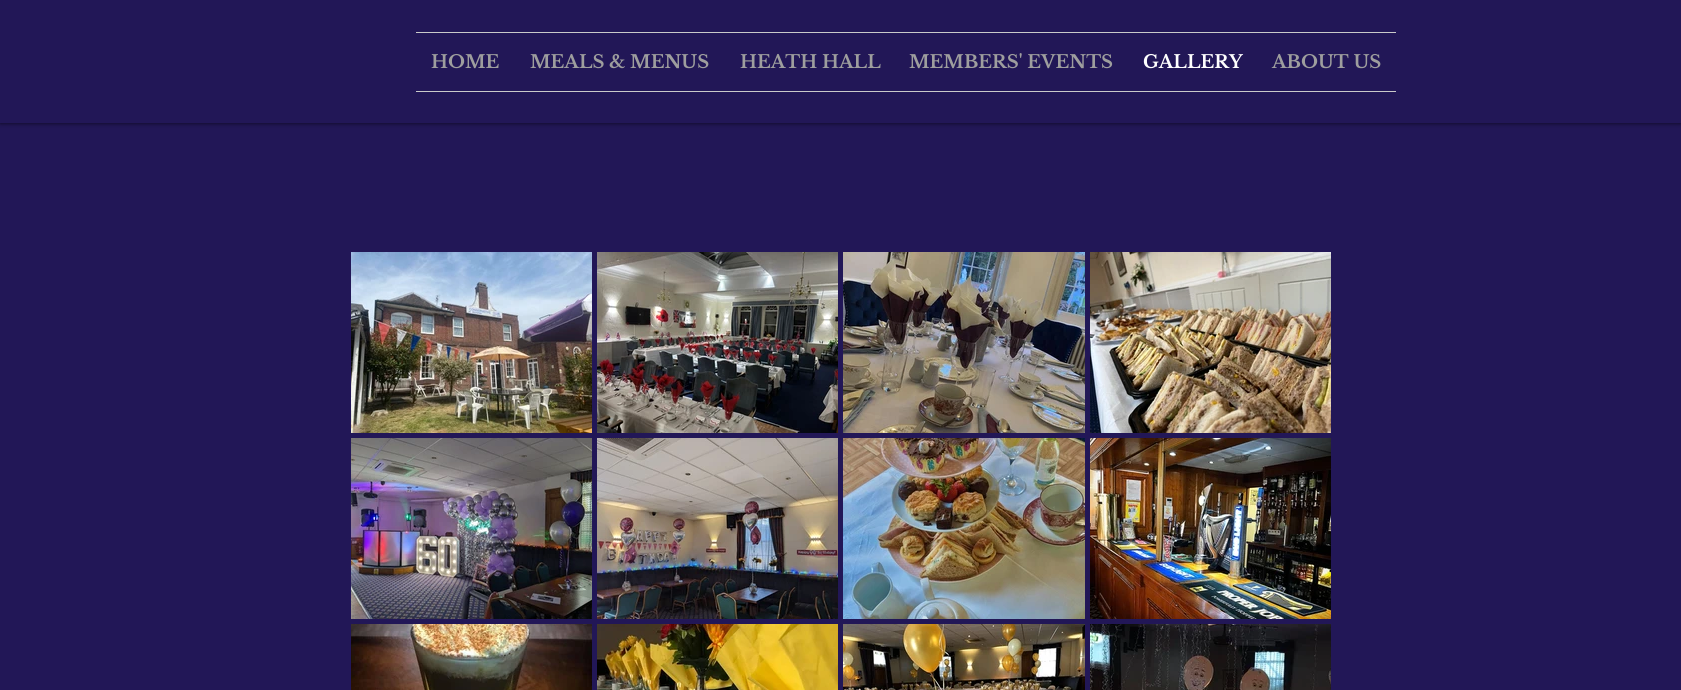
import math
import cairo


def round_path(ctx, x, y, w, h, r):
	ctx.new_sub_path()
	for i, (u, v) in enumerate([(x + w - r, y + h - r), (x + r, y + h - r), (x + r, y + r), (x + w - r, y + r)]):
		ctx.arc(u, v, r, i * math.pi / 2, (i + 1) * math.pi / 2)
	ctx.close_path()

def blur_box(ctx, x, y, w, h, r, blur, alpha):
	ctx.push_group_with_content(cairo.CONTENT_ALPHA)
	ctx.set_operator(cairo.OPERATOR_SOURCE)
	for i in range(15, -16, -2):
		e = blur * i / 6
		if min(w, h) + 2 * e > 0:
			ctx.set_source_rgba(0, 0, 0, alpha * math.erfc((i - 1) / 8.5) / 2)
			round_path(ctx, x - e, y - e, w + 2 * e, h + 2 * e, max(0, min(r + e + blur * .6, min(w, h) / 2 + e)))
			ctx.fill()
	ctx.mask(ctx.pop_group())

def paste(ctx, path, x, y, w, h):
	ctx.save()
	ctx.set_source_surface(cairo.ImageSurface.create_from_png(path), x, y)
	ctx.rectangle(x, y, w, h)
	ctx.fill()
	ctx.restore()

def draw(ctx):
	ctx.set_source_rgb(0.133, 0.09, 0.341)
	ctx.paint()
	ctx.set_source_rgb(0, 0, 0)
	blur_box(ctx, 0, 0, 1681, 123, 0, 2.5, 0.7)
	ctx.set_source_rgb(0.133, 0.09, 0.341)
	ctx.rectangle(0, 0, 1681, 123)
	ctx.fill()
	ctx.set_source_rgb(0.792, 0.792, 0.792)
	ctx.rectangle(416, 32, 980, 1)
	ctx.rectangle(416, 91, 980, 1)
	ctx.fill()
	ctx.select_font_face('Libre Baskerville', cairo.FONT_SLANT_NORMAL, cairo.FONT_WEIGHT_BOLD)
	ctx.set_font_size(18)
	ctx.set_source_rgb(0.62, 0.62, 0.62)
	for x, y, s in [
		(431, 68, 'HOME'),
		(530, 68, 'MEALS & MENUS'),
		(740, 68, 'HEATH HALL'),
		(909, 68, 'MEMBERS\' EVENTS'),
	]:
		ctx.move_to(x, y)
		ctx.show_text(s)
	ctx.set_source_rgb(1, 1, 1)
	ctx.move_to(1143, 68)
	ctx.show_text('GALLERY')
	ctx.set_source_rgb(0.62, 0.62, 0.62)
	ctx.move_to(1272, 68)
	ctx.show_text('ABOUT US')
	paste(ctx, 'media/1.png', 351, 252, 241, 181)
	paste(ctx, 'media/2.png', 597, 252, 241, 181)
	paste(ctx, 'media/3.png', 843, 252, 242, 181)
	paste(ctx, 'media/4.png', 1090, 252, 241, 181)
	paste(ctx, 'media/5.png', 351, 438, 241, 181)
	paste(ctx, 'media/6.png', 597, 438, 241, 181)
	paste(ctx, 'media/7.png', 843, 438, 242, 181)
	paste(ctx, 'media/8.png', 1090, 438, 241, 181)
	paste(ctx, 'media/9.png', 351, 624, 241, 66)
	paste(ctx, 'media/10.png', 597, 624, 241, 66)
	paste(ctx, 'media/11.png', 843, 624, 242, 66)
	paste(ctx, 'media/12.png', 1090, 624, 241, 66)


surface = cairo.ImageSurface(cairo.FORMAT_RGB24, 1681, 690)
ctx = cairo.Context(surface)
options = cairo.FontOptions()
options.set_hint_metrics(cairo.HINT_METRICS_OFF)
options.set_hint_style(cairo.HINT_STYLE_NONE)
ctx.set_font_options(options)
ctx.set_miter_limit(4)
draw(ctx)
surface.write_to_png('image.png')
